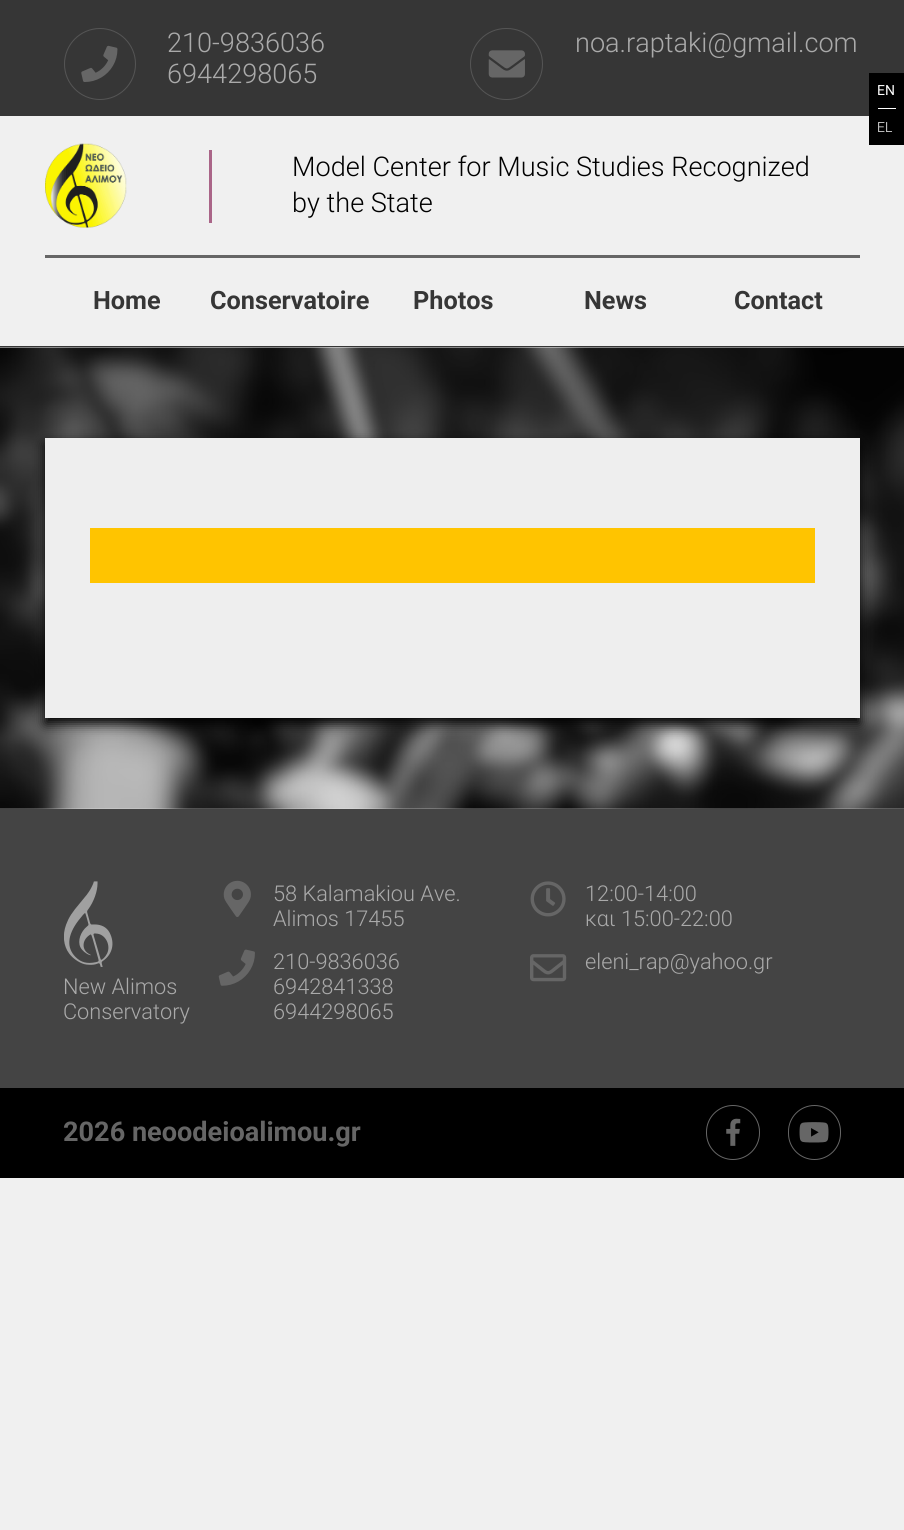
import math
import cairo


def round_path(ctx, x, y, w, h, r):
	ctx.new_sub_path()
	for i, (u, v) in enumerate([(x + w - r, y + h - r), (x + r, y + h - r), (x + r, y + r), (x + w - r, y + r)]):
		ctx.arc(u, v, r, i * math.pi / 2, (i + 1) * math.pi / 2)
	ctx.close_path()

def blur_box(ctx, x, y, w, h, r, blur, alpha):
	ctx.push_group_with_content(cairo.CONTENT_ALPHA)
	ctx.set_operator(cairo.OPERATOR_SOURCE)
	for i in range(15, -16, -2):
		e = blur * i / 6
		if min(w, h) + 2 * e > 0:
			ctx.set_source_rgba(0, 0, 0, alpha * math.erfc((i - 1) / 8.5) / 2)
			round_path(ctx, x - e, y - e, w + 2 * e, h + 2 * e, max(0, min(r + e + blur * .6, min(w, h) / 2 + e)))
			ctx.fill()
	ctx.mask(ctx.pop_group())

def paste(ctx, path, x, y, w, h):
	ctx.save()
	ctx.set_source_surface(cairo.ImageSurface.create_from_png(path), x, y)
	ctx.rectangle(x, y, w, h)
	ctx.fill()
	ctx.restore()

def draw(ctx):
	ctx.set_source_rgb(0.941, 0.941, 0.941)
	ctx.paint()
	ctx.set_source_rgb(0.212, 0.212, 0.212)
	ctx.rectangle(0, 0, 904, 116)
	ctx.fill()
	ctx.arc(100, 64, 35.5, 0, 2 * math.pi)
	ctx.set_source_rgb(0.333, 0.333, 0.333)
	ctx.set_line_width(1)
	ctx.stroke()
	paste(ctx, 'media/1.png', 81, 45, 37, 37)
	ctx.select_font_face('Roboto Light')
	ctx.set_font_size(27.1)
	ctx.set_source_rgb(0.667, 0.667, 0.667)
	ctx.move_to(167, 52)
	ctx.show_text('210-9836036')
	ctx.move_to(167, 83)
	ctx.show_text('6944298065')
	round_path(ctx, 470.5, 28.5, 72, 71, 35.5)
	ctx.set_source_rgb(0.333, 0.333, 0.333)
	ctx.stroke()
	paste(ctx, 'media/2.png', 488, 50, 37, 28)
	ctx.set_source_rgb(0.667, 0.667, 0.667)
	ctx.move_to(575, 52)
	ctx.show_text('noa.raptaki@gmail.com')
	ctx.set_source_rgb(0.212, 0.212, 0.212)
	ctx.rectangle(0, 346, 904, 1)
	ctx.fill()
	paste(ctx, 'media/3.png', 45, 143, 82, 85)
	ctx.set_source_rgb(0.667, 0.396, 0.533)
	ctx.rectangle(209, 150, 3, 73)
	ctx.fill()
	ctx.set_source_rgb(0, 0, 0)
	ctx.move_to(292, 176)
	ctx.show_text('Model Center for Music Studies Recognized')
	ctx.move_to(292, 212)
	ctx.show_text('by the State')
	ctx.set_source_rgb(0.4, 0.4, 0.4)
	ctx.rectangle(45, 255, 815, 3)
	ctx.fill()
	ctx.select_font_face('Roboto', cairo.FONT_SLANT_NORMAL, cairo.FONT_WEIGHT_BOLD)
	ctx.set_font_size(25.25)
	ctx.set_source_rgb(0.212, 0.212, 0.212)
	for x, y, s in [
		(93, 309, 'Home'),
		(210, 309, 'Conservatoire'),
		(413, 309, 'Photos'),
		(584, 309, 'News'),
		(734, 309, 'Contact'),
	]:
		ctx.move_to(x, y)
		ctx.show_text(s)
	ctx.set_source_rgb(0, 0, 0)
	ctx.rectangle(869, 73, 35, 72)
	ctx.fill()
	ctx.set_source_rgb(1, 1, 1)
	ctx.rectangle(878, 108, 18, 1)
	ctx.fill()
	ctx.select_font_face('Roboto')
	ctx.set_font_size(14)
	ctx.move_to(877, 95)
	ctx.show_text('EN')
	ctx.select_font_face('Roboto Light')
	ctx.move_to(877, 132)
	ctx.show_text('EL')
	paste(ctx, 'media/4.png', 0, 347, 904, 462)
	ctx.set_source_rgb(0, 0, 0)
	blur_box(ctx, 45, 444, 815, 280, 0, 6, 1)
	ctx.set_source_rgb(0.933, 0.933, 0.933)
	ctx.rectangle(45, 438, 815, 280)
	ctx.fill()
	ctx.set_source_rgb(1, 0.769, 0)
	ctx.rectangle(90, 528, 725, 55)
	ctx.fill()
	ctx.set_source_rgb(0.267, 0.267, 0.267)
	ctx.rectangle(0, 809, 904, 279)
	ctx.fill()
	paste(ctx, 'media/5.png', 64, 881, 49, 86)
	ctx.set_font_size(21.75)
	ctx.set_source_rgb(0.667, 0.667, 0.667)
	ctx.move_to(63, 994)
	ctx.show_text('New Alimos')
	ctx.move_to(63, 1019)
	ctx.show_text('Conservatory')
	paste(ctx, 'media/6.png', 223, 880, 28, 37)
	ctx.move_to(273, 901)
	ctx.show_text('58 Kalamakiou Ave.')
	ctx.move_to(273, 926)
	ctx.show_text('Alimos 17455')
	paste(ctx, 'media/7.png', 530, 881, 36, 36)
	ctx.move_to(585, 901)
	ctx.show_text('12:00-14:00')
	ctx.move_to(585, 926)
	ctx.show_text('και 15:00-22:00')
	paste(ctx, 'media/8.png', 218, 949, 37, 37)
	for x, y, s in [
		(273, 969, '210-9836036'),
		(273, 994, '6942841338'),
		(273, 1019, '6944298065'),
	]:
		ctx.move_to(x, y)
		ctx.show_text(s)
	paste(ctx, 'media/9.png', 530, 954, 37, 28)
	ctx.move_to(585, 969)
	ctx.show_text('eleni_rap@yahoo.gr')
	ctx.set_source_rgb(0, 0, 0)
	ctx.rectangle(0, 1088, 904, 90)
	ctx.fill()
	ctx.select_font_face('Roboto', cairo.FONT_SLANT_NORMAL, cairo.FONT_WEIGHT_BOLD)
	ctx.set_font_size(27.1)
	ctx.set_source_rgb(0.4, 0.4, 0.4)
	ctx.move_to(63, 1141)
	ctx.show_text('2026 neoodeioalimou.gr')
	round_path(ctx, 706.5, 1105.5, 53, 54, 26.5)
	ctx.stroke()
	paste(ctx, 'media/10.png', 726, 1118, 15, 28)
	round_path(ctx, 788.5, 1105.5, 52, 54, 26)
	ctx.stroke()
	paste(ctx, 'media/11.png', 799, 1122, 30, 21)


surface = cairo.ImageSurface(cairo.FORMAT_RGB24, 904, 1530)
ctx = cairo.Context(surface)
options = cairo.FontOptions()
options.set_hint_metrics(cairo.HINT_METRICS_OFF)
options.set_hint_style(cairo.HINT_STYLE_NONE)
ctx.set_font_options(options)
ctx.set_miter_limit(4)
draw(ctx)
surface.write_to_png('image.png')
